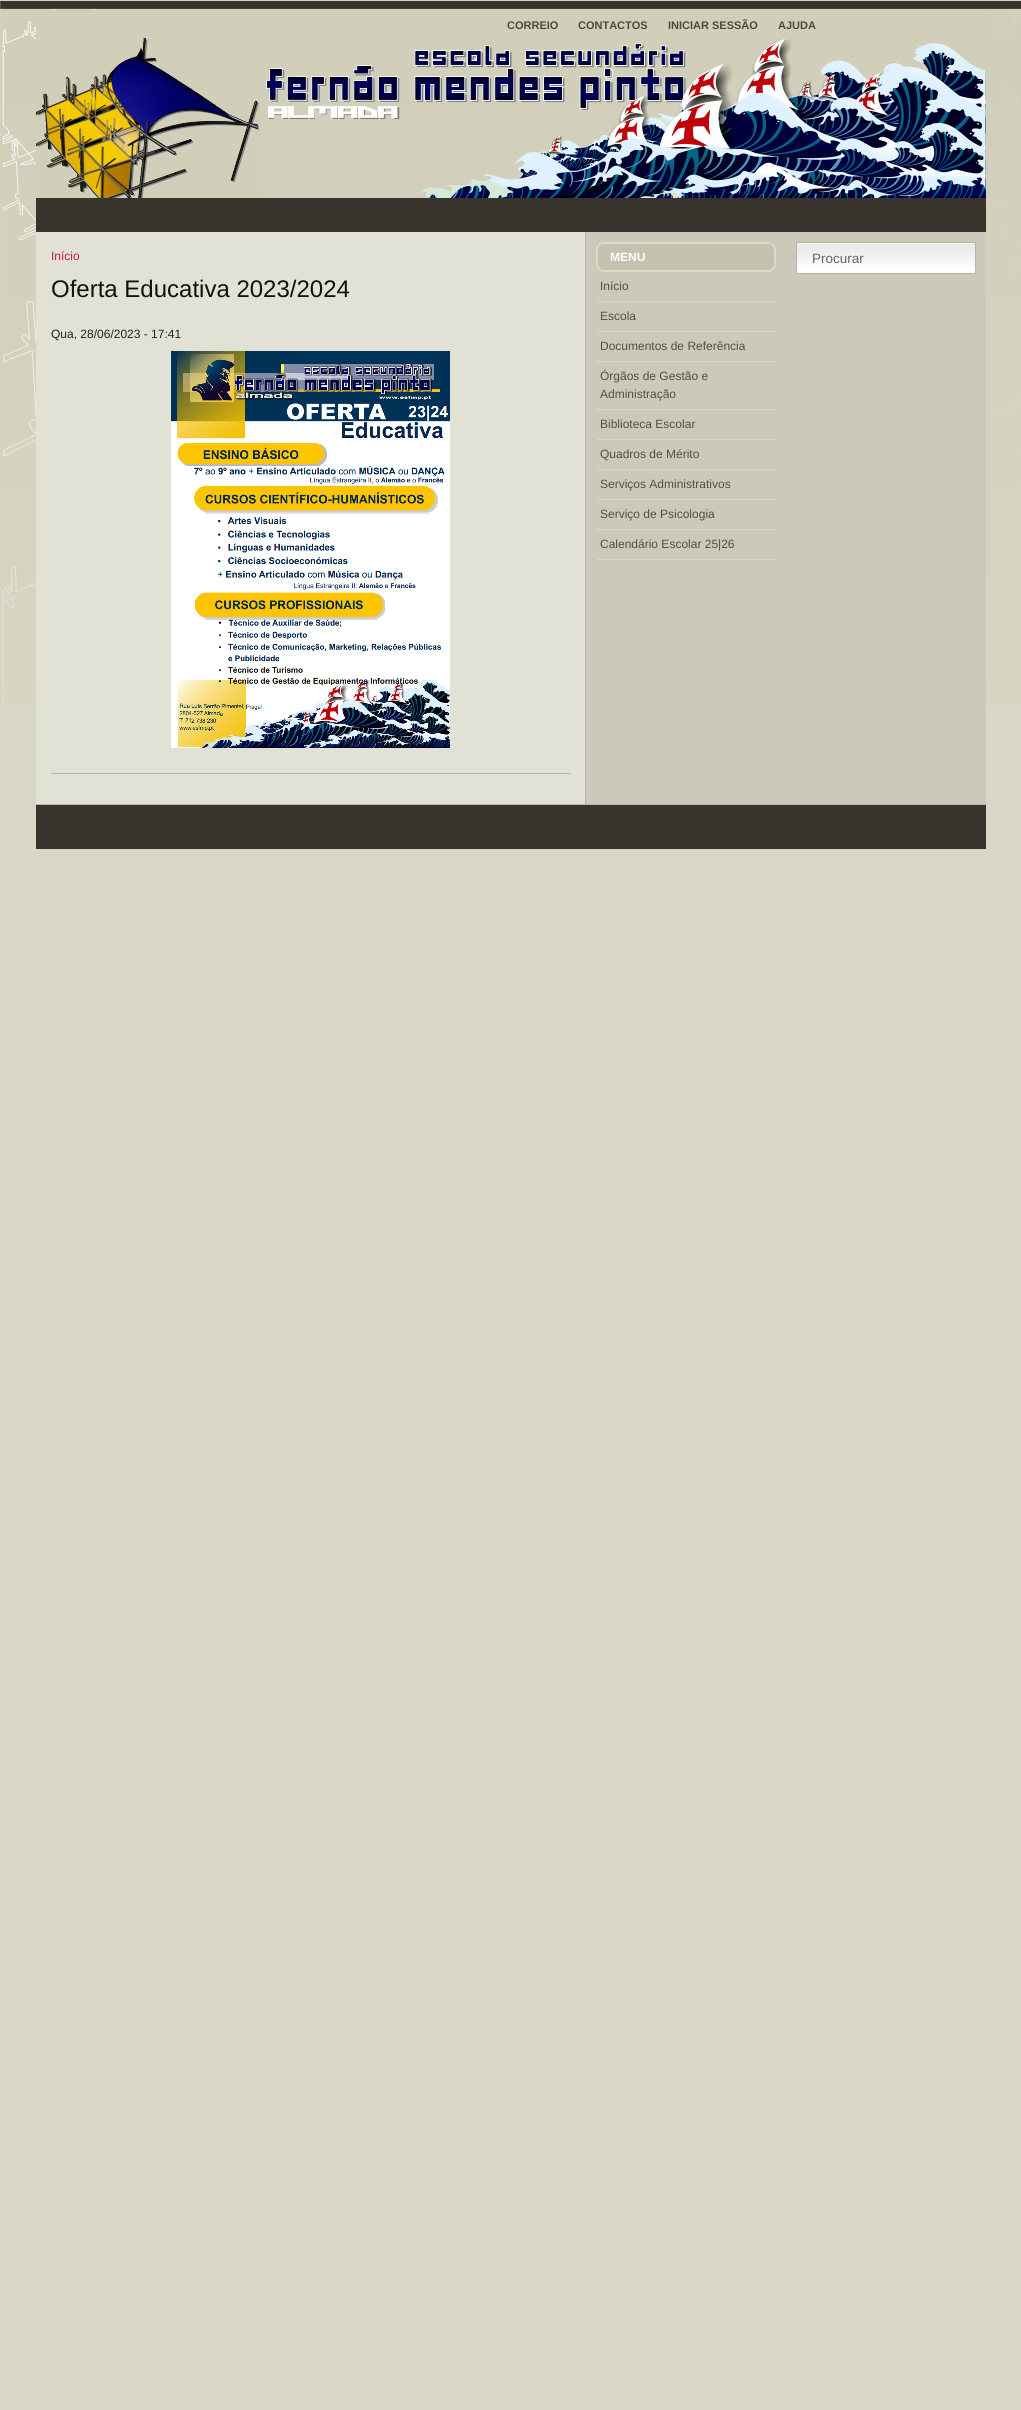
import math
import cairo


def round_path(ctx, x, y, w, h, r):
	ctx.new_sub_path()
	for i, (u, v) in enumerate([(x + w - r, y + h - r), (x + r, y + h - r), (x + r, y + r), (x + w - r, y + r)]):
		ctx.arc(u, v, r, i * math.pi / 2, (i + 1) * math.pi / 2)
	ctx.close_path()

def paste(ctx, path, x, y, w, h):
	ctx.save()
	ctx.set_source_surface(cairo.ImageSurface.create_from_png(path), x, y)
	ctx.rectangle(x, y, w, h)
	ctx.fill()
	ctx.restore()

def draw(ctx):
	ctx.set_source_rgb(0.847, 0.839, 0.769)
	ctx.paint()
	paste(ctx, 'media/1.png', 0, 1, 1021, 705)
	ctx.set_source_rgb(0.82, 0.812, 0.729)
	ctx.rectangle(36, 10, 226, 188)
	ctx.fill()
	ctx.select_font_face('Liberation Sans', cairo.FONT_SLANT_NORMAL, cairo.FONT_WEIGHT_BOLD)
	ctx.set_font_size(11)
	ctx.set_source_rgb(0.302, 0.282, 0.259)
	for x, y, s in [
		(507, 29, 'CORREIO'),
		(578, 29, 'CONTACTOS'),
		(668, 29, 'INICIAR SESSÃO'),
		(778, 29, 'AJUDA'),
	]:
		ctx.move_to(x, y)
		ctx.show_text(s)
	paste(ctx, 'media/2.png', 36, 38, 950, 160)
	ctx.set_source_rgb(0.22, 0.2, 0.176)
	ctx.rectangle(36, 198, 950, 34)
	ctx.fill()
	paste(ctx, 'media/3.png', 36, 232, 950, 572)
	ctx.select_font_face('Liberation Sans')
	ctx.set_font_size(12)
	ctx.set_source_rgb(0.773, 0.086, 0.282)
	ctx.move_to(51, 260)
	ctx.show_text('Início')
	ctx.set_font_size(24)
	ctx.set_source_rgb(0.067, 0.067, 0.067)
	ctx.move_to(51, 297)
	ctx.show_text('Oferta Educativa 2023/2024')
	ctx.set_source_rgb(0.718, 0.71, 0.647)
	ctx.rectangle(51, 773, 520, 1)
	ctx.fill()
	ctx.set_font_size(12)
	ctx.set_source_rgb(0.133, 0.133, 0.133)
	ctx.move_to(51, 338)
	ctx.show_text('Qua, 28/06/2023 - 17:41')
	paste(ctx, 'media/4.png', 171, 351, 279, 397)
	ctx.set_source_rgb(0.769, 0.761, 0.686)
	round_path(ctx, 597, 243, 178, 28, 7)
	ctx.fill_preserve()
	ctx.set_source_rgb(0.863, 0.855, 0.784)
	ctx.stroke()
	ctx.select_font_face('Liberation Sans', cairo.FONT_SLANT_NORMAL, cairo.FONT_WEIGHT_BOLD)
	ctx.set_source_rgb(1, 1, 1)
	ctx.move_to(610, 261)
	ctx.show_text('MENU')
	ctx.set_source_rgb(0.851, 0.843, 0.773)
	ctx.rectangle(596, 301, 180, 1)
	ctx.fill()
	ctx.select_font_face('Liberation Sans')
	ctx.set_source_rgb(0.31, 0.31, 0.298)
	ctx.move_to(600, 290)
	ctx.show_text('Início')
	ctx.set_source_rgb(0.851, 0.843, 0.773)
	ctx.rectangle(596, 331, 180, 1)
	ctx.fill()
	ctx.set_source_rgb(0.31, 0.31, 0.298)
	ctx.move_to(600, 320)
	ctx.show_text('Escola')
	ctx.set_source_rgb(0.851, 0.843, 0.773)
	ctx.rectangle(596, 361, 180, 1)
	ctx.fill()
	ctx.set_source_rgb(0.31, 0.31, 0.298)
	ctx.move_to(600, 350)
	ctx.show_text('Documentos de Referência')
	ctx.set_source_rgb(0.851, 0.843, 0.773)
	ctx.rectangle(596, 409, 180, 1)
	ctx.fill()
	ctx.set_source_rgb(0.31, 0.31, 0.298)
	ctx.move_to(600, 380)
	ctx.show_text('Órgãos de Gestão e')
	ctx.move_to(600, 398)
	ctx.show_text('Administração')
	ctx.set_source_rgb(0.851, 0.843, 0.773)
	ctx.rectangle(596, 439, 180, 1)
	ctx.fill()
	ctx.set_source_rgb(0.31, 0.31, 0.298)
	ctx.move_to(600, 428)
	ctx.show_text('Biblioteca Escolar')
	ctx.set_source_rgb(0.851, 0.843, 0.773)
	ctx.rectangle(596, 469, 180, 1)
	ctx.fill()
	ctx.set_source_rgb(0.31, 0.31, 0.298)
	ctx.move_to(600, 458)
	ctx.show_text('Quadros de Mérito')
	ctx.set_source_rgb(0.851, 0.843, 0.773)
	ctx.rectangle(596, 499, 180, 1)
	ctx.fill()
	ctx.set_source_rgb(0.31, 0.31, 0.298)
	ctx.move_to(600, 488)
	ctx.show_text('Serviços Administrativos')
	ctx.set_source_rgb(0.851, 0.843, 0.773)
	ctx.rectangle(596, 529, 180, 1)
	ctx.fill()
	ctx.set_source_rgb(0.31, 0.31, 0.298)
	ctx.move_to(600, 518)
	ctx.show_text('Serviço de Psicologia')
	ctx.set_source_rgb(0.851, 0.843, 0.773)
	ctx.rectangle(596, 559, 180, 1)
	ctx.fill()
	ctx.set_source_rgb(0.31, 0.31, 0.298)
	ctx.move_to(600, 548)
	ctx.show_text('Calendário Escolar 25|26')
	ctx.set_source_rgb(1, 1, 1)
	ctx.rectangle(797, 267, 178, 6)
	ctx.fill()
	paste(ctx, 'media/5.png', 797, 243, 178, 24)
	ctx.rectangle(796.5, 242.5, 179, 31)
	ctx.set_source_rgb(0.718, 0.71, 0.647)
	ctx.set_line_width(1)
	ctx.stroke()
	ctx.set_font_size(13.5)
	ctx.set_source_rgb(0.4, 0.4, 0.4)
	ctx.move_to(812, 263)
	ctx.show_text('Procurar')
	ctx.set_source_rgb(0.22, 0.2, 0.176)
	ctx.rectangle(36, 805, 950, 44)
	ctx.fill()
	ctx.set_source_rgb(0.718, 0.71, 0.647)
	ctx.rectangle(36, 804, 950, 1)
	ctx.fill()


surface = cairo.ImageSurface(cairo.FORMAT_RGB24, 1021, 2410)
ctx = cairo.Context(surface)
options = cairo.FontOptions()
options.set_hint_metrics(cairo.HINT_METRICS_OFF)
options.set_hint_style(cairo.HINT_STYLE_NONE)
ctx.set_font_options(options)
ctx.set_miter_limit(4)
draw(ctx)
surface.write_to_png('image.png')
